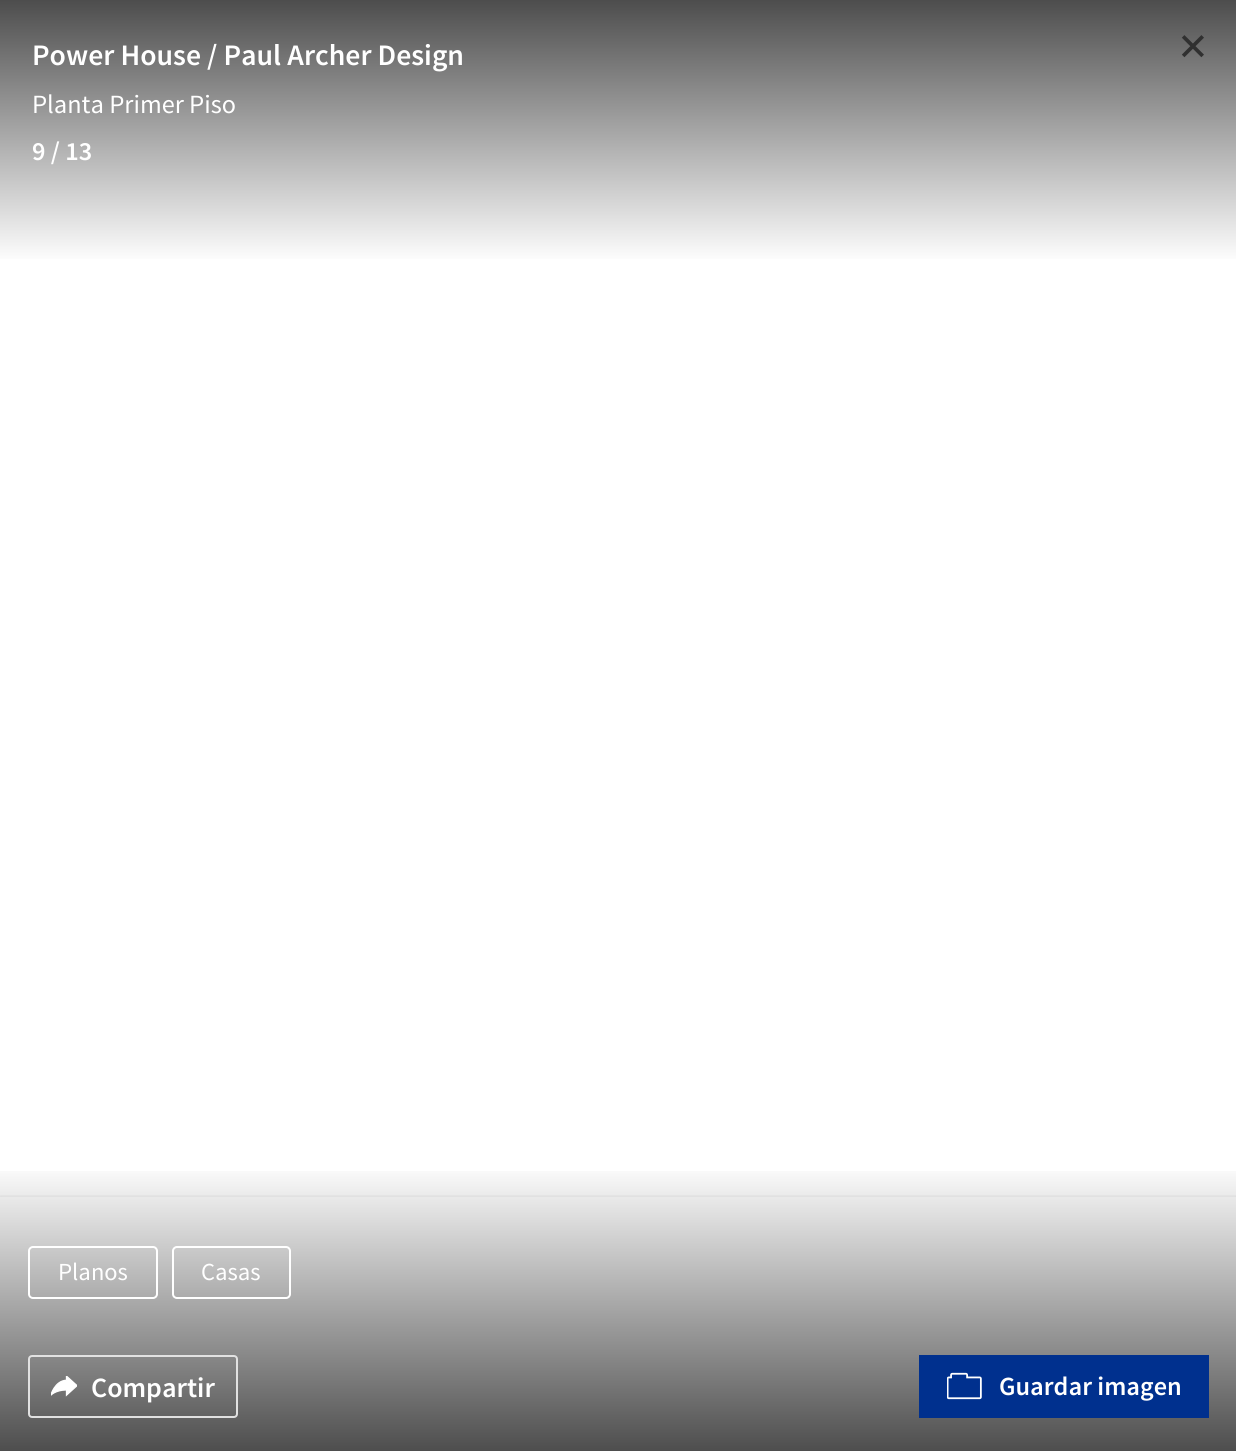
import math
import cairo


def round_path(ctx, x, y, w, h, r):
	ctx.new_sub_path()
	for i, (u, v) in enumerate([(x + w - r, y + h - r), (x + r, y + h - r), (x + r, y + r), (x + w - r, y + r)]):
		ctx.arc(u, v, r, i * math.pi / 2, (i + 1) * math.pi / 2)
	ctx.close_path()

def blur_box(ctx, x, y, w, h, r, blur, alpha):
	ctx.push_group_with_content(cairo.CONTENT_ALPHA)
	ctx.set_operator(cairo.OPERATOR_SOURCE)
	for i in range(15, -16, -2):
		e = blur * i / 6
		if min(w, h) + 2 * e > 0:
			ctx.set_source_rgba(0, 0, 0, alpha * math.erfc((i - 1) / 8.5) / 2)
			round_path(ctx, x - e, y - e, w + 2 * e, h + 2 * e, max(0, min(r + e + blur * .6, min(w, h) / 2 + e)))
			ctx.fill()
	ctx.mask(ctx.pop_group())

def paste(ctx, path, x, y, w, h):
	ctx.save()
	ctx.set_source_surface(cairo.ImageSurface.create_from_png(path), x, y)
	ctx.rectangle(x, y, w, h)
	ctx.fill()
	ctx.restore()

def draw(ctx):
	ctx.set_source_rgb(1, 1, 1)
	ctx.paint()
	gradient = cairo.LinearGradient(619, 0, 619, 263)
	gradient.add_color_stop_rgba(0, 0.302, 0.302, 0.302, 1)
	gradient.add_color_stop_rgba(1, 1, 1, 1, 1)
	ctx.set_source(gradient)
	ctx.rectangle(0, 0, 1236, 259)
	ctx.fill()
	ctx.select_font_face('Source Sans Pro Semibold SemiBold')
	ctx.set_font_size(29.75)
	ctx.set_source_rgb(1, 1, 1)
	ctx.move_to(32, 65)
	ctx.show_text('Power House / Paul Archer Design')
	ctx.select_font_face('Source Sans Pro')
	ctx.set_font_size(26.25)
	ctx.move_to(32, 113)
	ctx.show_text('Planta Primer Piso')
	ctx.select_font_face('Source Sans Pro Semibold SemiBold')
	ctx.move_to(32, 160)
	ctx.show_text('9 / 13')
	ctx.select_font_face('DejaVu Sans')
	ctx.set_font_size(38)
	ctx.set_source_rgb(0.188, 0.188, 0.188)
	ctx.move_to(1177, 60)
	ctx.show_text('✕')
	ctx.save()
	ctx.rectangle(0, 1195, 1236, 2)
	ctx.clip()
	ctx.set_source_rgb(0, 0, 0)
	blur_box(ctx, 0, 1197, 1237, 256, 0, 2.5, 0.1)
	ctx.restore()
	gradient = cairo.LinearGradient(619, 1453, 619, 1162)
	gradient.add_color_stop_rgba(0, 0, 0, 0, 0.7)
	gradient.add_color_stop_rgba(1, 0, 0, 0, 0)
	ctx.set_source(gradient)
	ctx.rectangle(0, 1171, 1236, 280)
	ctx.fill()
	round_path(ctx, 29, 1247, 128, 51, 4)
	ctx.set_source_rgb(1, 1, 1)
	ctx.stroke()
	ctx.select_font_face('Source Sans Pro')
	ctx.set_font_size(24.5)
	ctx.move_to(58, 1280)
	ctx.show_text('Planos')
	round_path(ctx, 173, 1247, 117, 51, 4)
	ctx.stroke()
	ctx.move_to(201, 1280)
	ctx.show_text('Casas')
	round_path(ctx, 29, 1356, 208, 61, 3)
	ctx.set_source_rgb(0.882, 0.882, 0.882)
	ctx.stroke()
	paste(ctx, 'media/1.png', 51, 1376, 26, 21)
	ctx.select_font_face('Source Sans Pro Semibold SemiBold')
	ctx.set_font_size(28)
	ctx.set_source_rgb(1, 1, 1)
	ctx.move_to(91, 1397)
	ctx.show_text('Compartir')
	ctx.set_source_rgb(0, 0.188, 0.557)
	ctx.rectangle(919, 1355, 290, 63)
	ctx.fill()
	paste(ctx, 'media/2.png', 947, 1372, 35, 28)
	ctx.set_font_size(26.25)
	ctx.set_source_rgb(1, 1, 1)
	ctx.move_to(999, 1395)
	ctx.show_text('Guardar imagen')


surface = cairo.ImageSurface(cairo.FORMAT_RGB24, 1236, 1451)
ctx = cairo.Context(surface)
options = cairo.FontOptions()
options.set_hint_metrics(cairo.HINT_METRICS_OFF)
options.set_hint_style(cairo.HINT_STYLE_NONE)
ctx.set_font_options(options)
ctx.set_miter_limit(4)
draw(ctx)
surface.write_to_png('image.png')
